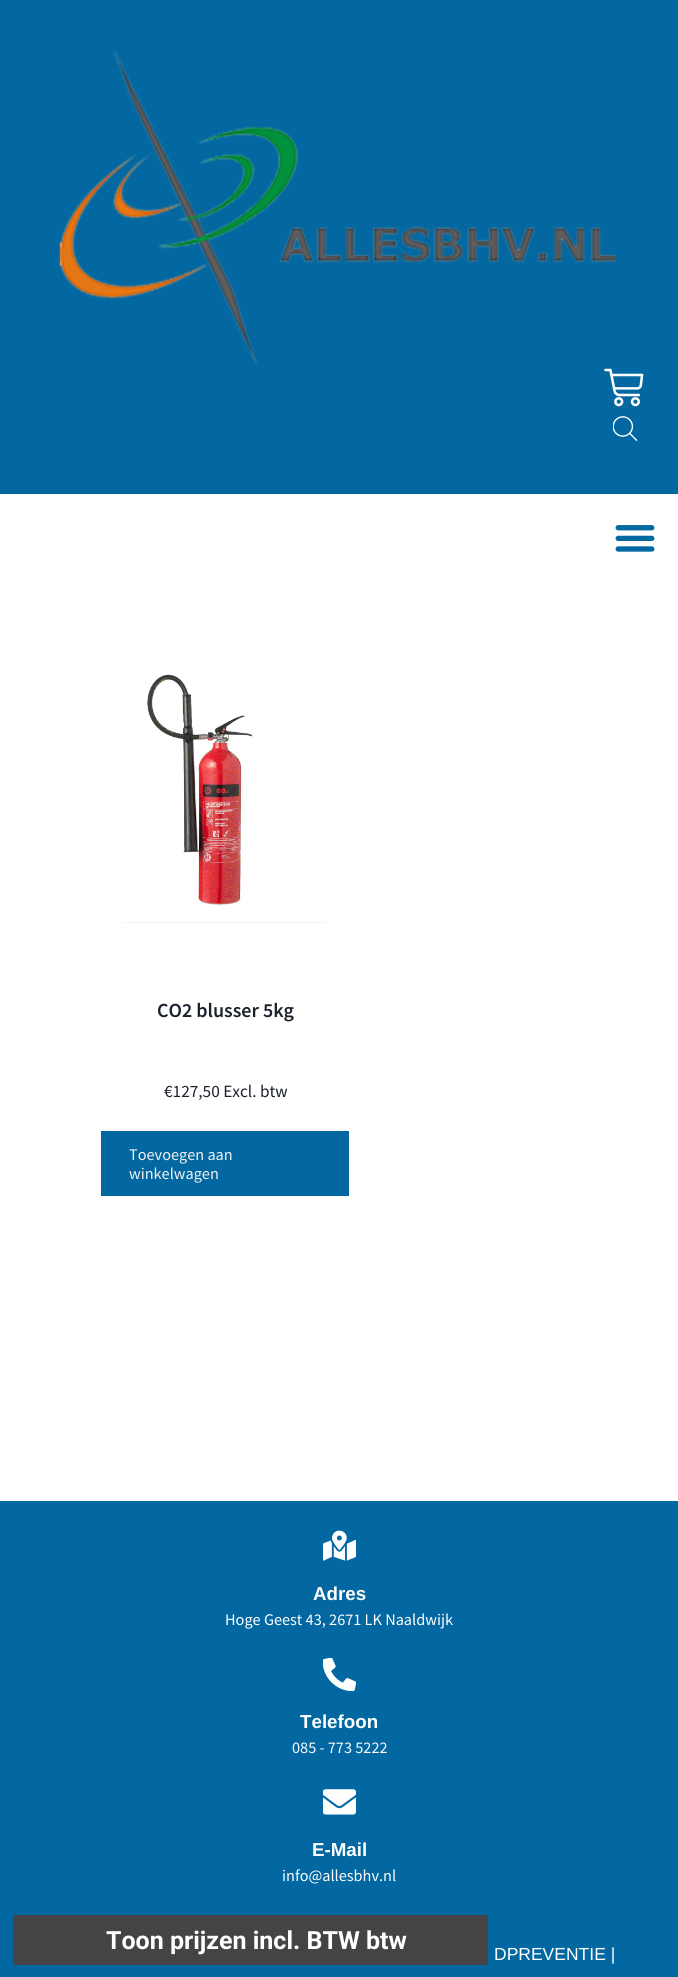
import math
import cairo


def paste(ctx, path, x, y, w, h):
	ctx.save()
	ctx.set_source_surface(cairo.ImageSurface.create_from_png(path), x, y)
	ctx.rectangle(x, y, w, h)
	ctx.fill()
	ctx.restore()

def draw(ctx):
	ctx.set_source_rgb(1, 1, 1)
	ctx.paint()
	ctx.set_source_rgb(0.012, 0.408, 0.631)
	ctx.rectangle(0, 0, 678, 494)
	ctx.fill()
	paste(ctx, 'media/1.png', 58, 51, 558, 313)
	paste(ctx, 'media/2.png', 604, 368, 40, 39)
	paste(ctx, 'media/3.png', 613, 416, 25, 25)
	paste(ctx, 'media/4.png', 615, 525, 40, 27)
	paste(ctx, 'media/5.png', 122, 674, 206, 249)
	ctx.select_font_face('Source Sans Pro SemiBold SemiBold')
	ctx.set_font_size(20)
	ctx.set_source_rgb(0.102, 0.125, 0.173)
	ctx.move_to(157, 1017)
	ctx.show_text('CO2 blusser 5kg')
	ctx.select_font_face('Source Sans Pro')
	ctx.set_font_size(17.25)
	ctx.move_to(164, 1097)
	ctx.show_text('€127,50 Excl. btw')
	ctx.set_source_rgb(0.012, 0.408, 0.631)
	ctx.rectangle(101, 1131, 248, 65)
	ctx.fill()
	ctx.set_font_size(16.25)
	ctx.set_source_rgb(0.945, 0.945, 0.945)
	ctx.move_to(129, 1160)
	ctx.show_text('Toevoegen aan')
	ctx.move_to(129, 1179)
	ctx.show_text('winkelwagen')
	ctx.set_source_rgb(0.012, 0.408, 0.631)
	ctx.rectangle(0, 1501, 678, 476)
	ctx.fill()
	paste(ctx, 'media/6.png', 323, 1530, 33, 31)
	ctx.select_font_face('Liberation Sans', cairo.FONT_SLANT_NORMAL, cairo.FONT_WEIGHT_BOLD)
	ctx.set_font_size(18.75)
	ctx.set_source_rgb(1, 1, 1)
	ctx.move_to(313, 1600)
	ctx.show_text('Adres')
	ctx.select_font_face('Source Sans Pro')
	ctx.set_font_size(16.25)
	ctx.move_to(225, 1625)
	ctx.show_text('Hoge Geest 43, 2671 LK Naaldwijk')
	paste(ctx, 'media/7.png', 323, 1658, 33, 33)
	ctx.select_font_face('Liberation Sans', cairo.FONT_SLANT_NORMAL, cairo.FONT_WEIGHT_BOLD)
	ctx.set_font_size(18.75)
	ctx.move_to(300, 1728)
	ctx.show_text('Telefoon')
	ctx.select_font_face('Source Sans Pro')
	ctx.set_font_size(16.25)
	ctx.set_source_rgb(0.969, 0.98, 0.988)
	ctx.move_to(292, 1753)
	ctx.show_text('085 - 773 5222')
	paste(ctx, 'media/8.png', 323, 1789, 33, 26)
	ctx.select_font_face('Liberation Sans', cairo.FONT_SLANT_NORMAL, cairo.FONT_WEIGHT_BOLD)
	ctx.set_font_size(18.75)
	ctx.set_source_rgb(1, 1, 1)
	ctx.move_to(312, 1856)
	ctx.show_text('E-Mail')
	ctx.select_font_face('Source Sans Pro')
	ctx.set_font_size(16.25)
	ctx.move_to(282, 1881)
	ctx.show_text('info@allesbhv.nl')
	ctx.select_font_face('Liberation Sans')
	ctx.set_font_size(17.5)
	ctx.move_to(494, 1960)
	ctx.show_text('DPREVENTIE |')
	ctx.set_source_rgb(0.267, 0.267, 0.267)
	ctx.rectangle(13, 1915, 475, 50)
	ctx.fill()
	ctx.select_font_face('Roboto', cairo.FONT_SLANT_NORMAL, cairo.FONT_WEIGHT_BOLD)
	ctx.set_font_size(25)
	ctx.set_source_rgb(1, 1, 1)
	ctx.move_to(106, 1949)
	ctx.show_text('Toon prijzen incl. BTW btw')


surface = cairo.ImageSurface(cairo.FORMAT_RGB24, 678, 1977)
ctx = cairo.Context(surface)
options = cairo.FontOptions()
options.set_hint_metrics(cairo.HINT_METRICS_OFF)
options.set_hint_style(cairo.HINT_STYLE_NONE)
ctx.set_font_options(options)
ctx.set_miter_limit(4)
draw(ctx)
surface.write_to_png('image.png')
